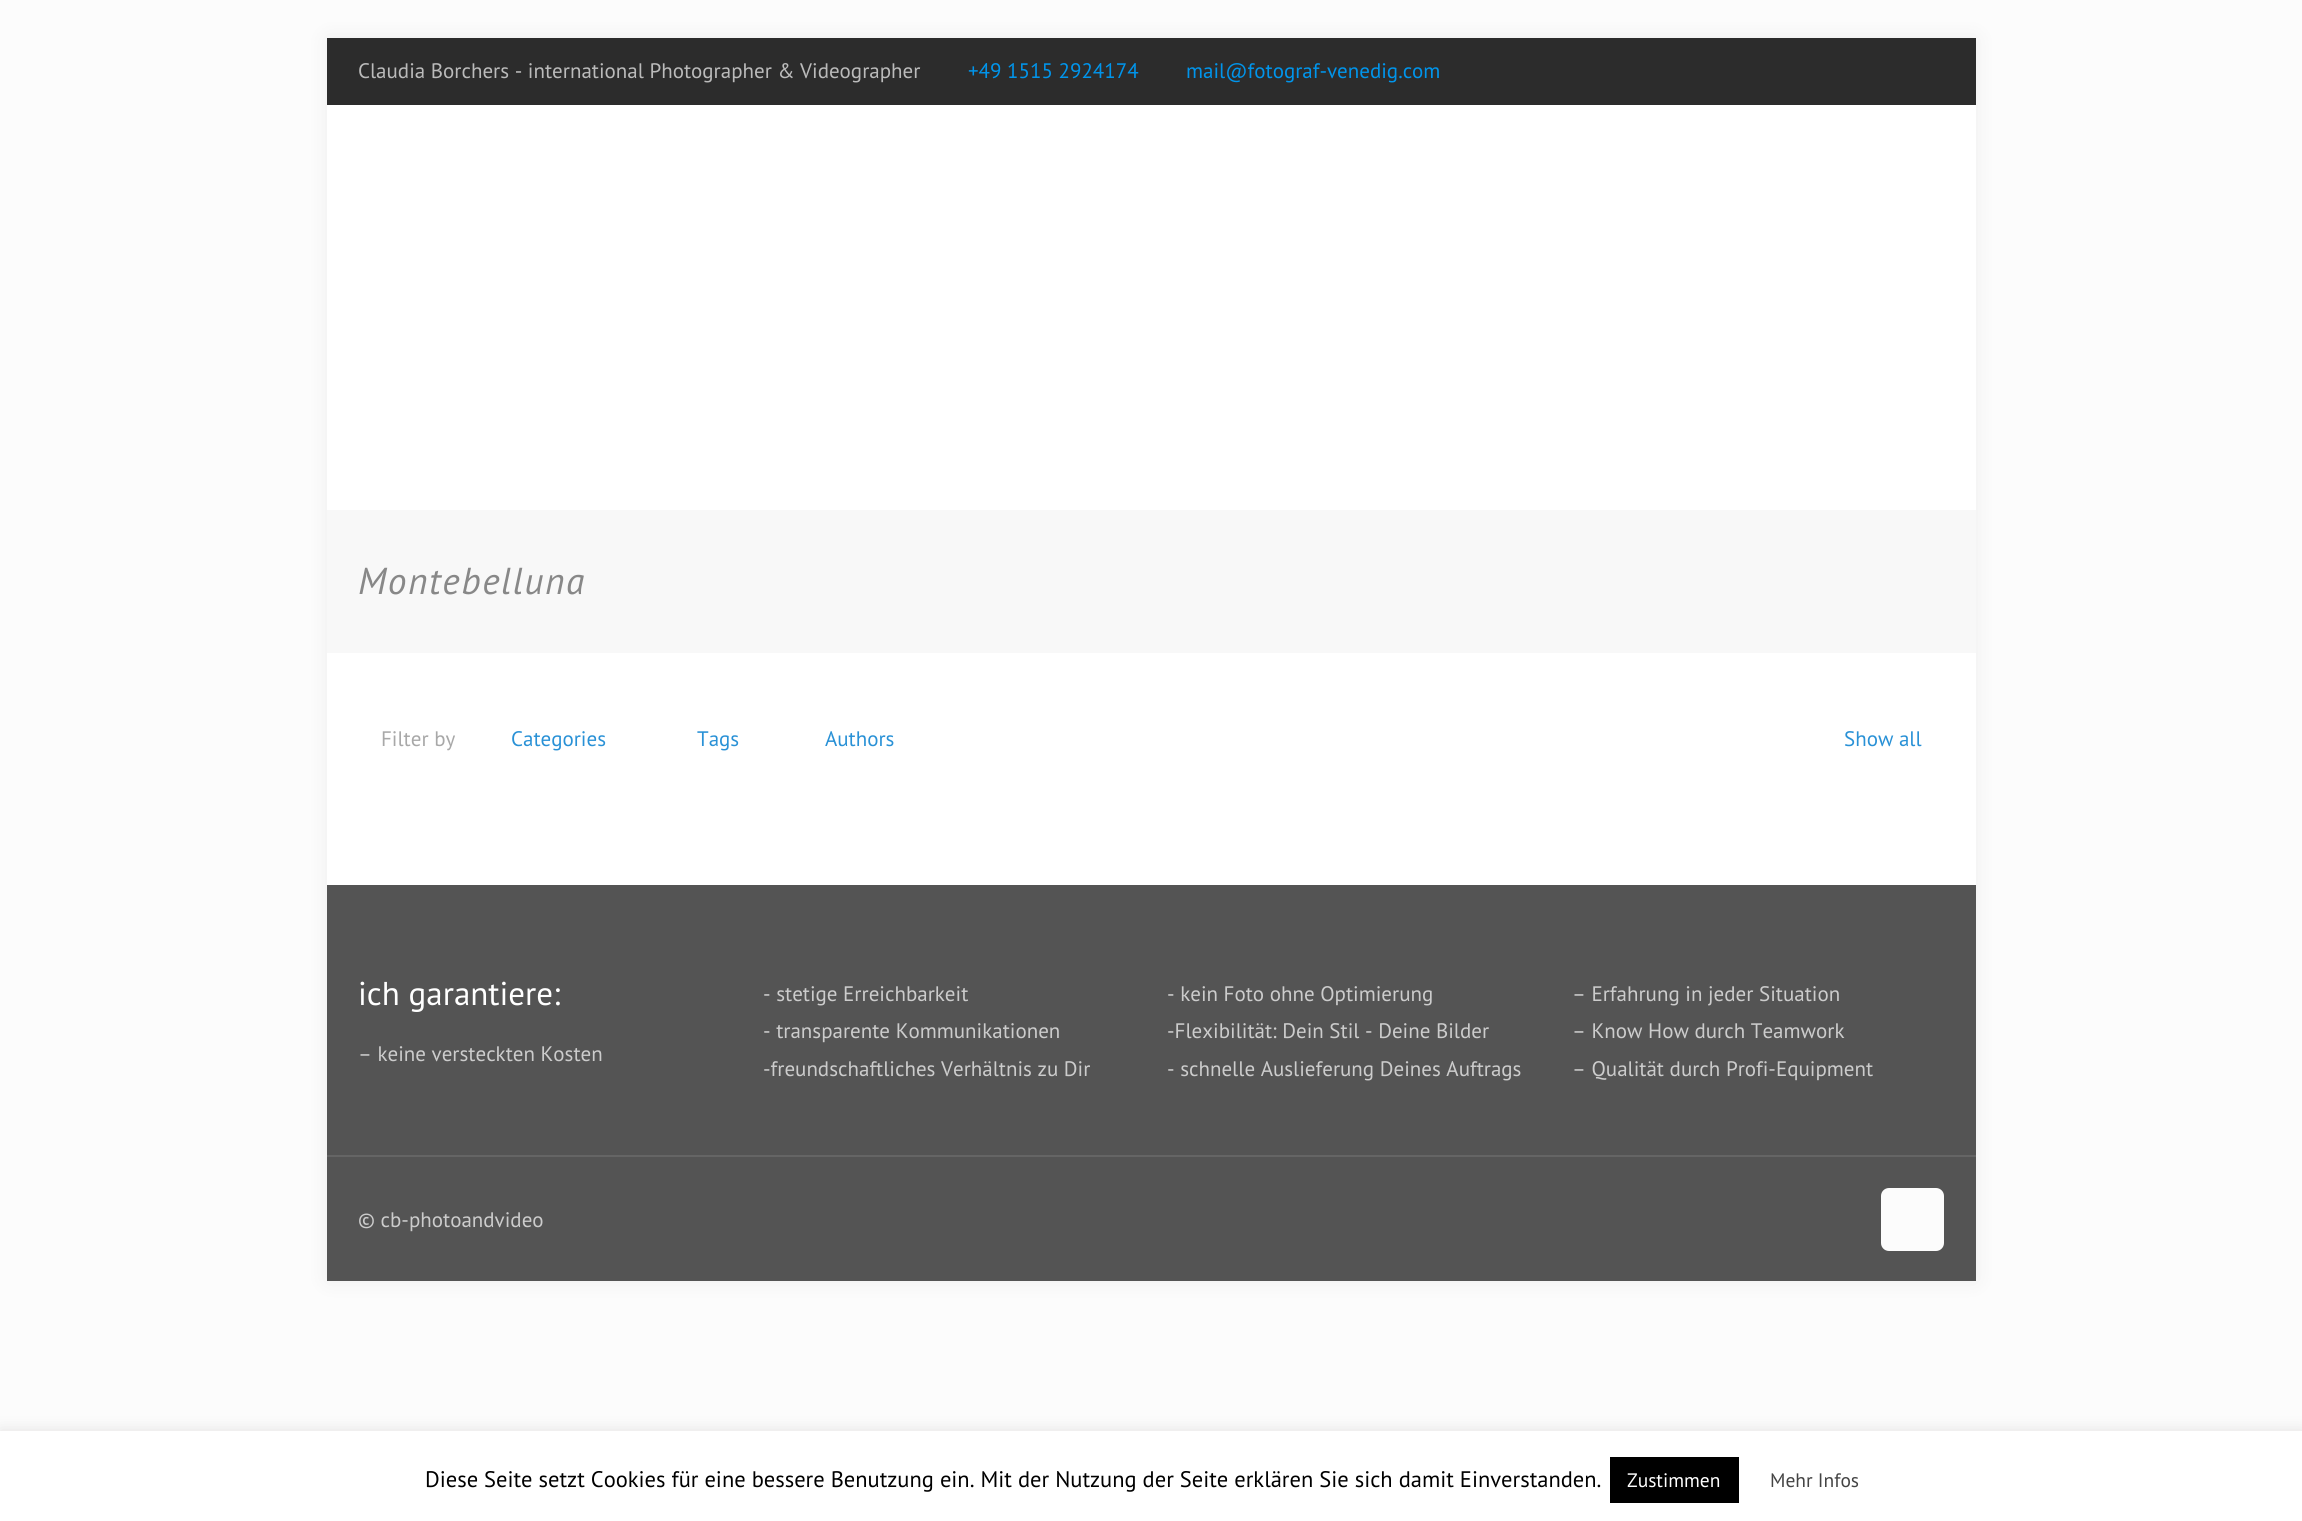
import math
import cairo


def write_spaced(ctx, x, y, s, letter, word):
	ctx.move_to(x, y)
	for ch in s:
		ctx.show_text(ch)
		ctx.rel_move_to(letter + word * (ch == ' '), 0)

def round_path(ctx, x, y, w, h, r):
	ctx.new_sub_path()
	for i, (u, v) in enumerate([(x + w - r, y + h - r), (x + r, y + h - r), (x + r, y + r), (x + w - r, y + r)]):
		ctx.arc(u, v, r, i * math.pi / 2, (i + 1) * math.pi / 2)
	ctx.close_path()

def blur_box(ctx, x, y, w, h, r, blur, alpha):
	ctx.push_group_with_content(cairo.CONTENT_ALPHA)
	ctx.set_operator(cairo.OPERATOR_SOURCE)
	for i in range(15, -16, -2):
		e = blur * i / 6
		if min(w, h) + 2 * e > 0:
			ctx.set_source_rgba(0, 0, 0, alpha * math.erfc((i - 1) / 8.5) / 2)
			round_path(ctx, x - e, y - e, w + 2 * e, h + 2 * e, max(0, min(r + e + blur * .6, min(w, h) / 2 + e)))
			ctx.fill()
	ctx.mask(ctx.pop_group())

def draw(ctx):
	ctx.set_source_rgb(0.988, 0.988, 0.988)
	ctx.paint()
	ctx.set_source_rgb(0, 0, 0)
	blur_box(ctx, 327, 38, 1649, 1243, 0, 11, 0.06)
	ctx.set_source_rgb(1, 1, 1)
	ctx.rectangle(327, 105, 1649, 780)
	ctx.fill()
	ctx.set_source_rgb(0.173, 0.173, 0.173)
	ctx.rectangle(327, 38, 1649, 67)
	ctx.fill()
	ctx.select_font_face('PT Sans')
	ctx.set_font_size(21)
	ctx.set_source_rgb(0.733, 0.733, 0.733)
	ctx.move_to(358, 78)
	ctx.show_text('Claudia Borchers - international Photographer & Videographer')
	ctx.set_source_rgb(0, 0.584, 0.922)
	ctx.move_to(968, 78)
	ctx.show_text('+49 1515 2924174')
	ctx.move_to(1186, 78)
	ctx.show_text('mail@fotograf-venedig.com')
	ctx.set_source_rgb(0.969, 0.969, 0.969)
	ctx.rectangle(327, 510, 1649, 143)
	ctx.fill()
	ctx.select_font_face('PT Sans', cairo.FONT_SLANT_ITALIC)
	ctx.set_font_size(37.5)
	ctx.set_source_rgb(0.533, 0.533, 0.533)
	write_spaced(ctx, 358, 594, 'Montebelluna', 1.5, 0)
	ctx.select_font_face('PT Sans')
	ctx.set_font_size(21)
	ctx.set_source_rgb(0.659, 0.659, 0.659)
	ctx.move_to(381, 746)
	ctx.show_text('Filter by')
	ctx.set_source_rgb(0.161, 0.569, 0.839)
	for x, y, s in [
		(511, 746, 'Categories'),
		(697, 746, 'Tags'),
		(825, 746, 'Authors'),
		(1844, 746, 'Show all'),
	]:
		ctx.move_to(x, y)
		ctx.show_text(s)
	ctx.set_source_rgb(0.329, 0.329, 0.329)
	ctx.rectangle(327, 885, 1649, 396)
	ctx.fill()
	ctx.set_font_size(33)
	ctx.set_source_rgb(1, 1, 1)
	ctx.move_to(358, 1005)
	ctx.show_text('ich garantiere:')
	ctx.set_font_size(21)
	ctx.set_source_rgb(0.8, 0.8, 0.8)
	for x, y, s in [
		(358, 1061, '– keine versteckten Kosten'),
		(763, 1001, '- stetige Erreichbarkeit'),
		(763, 1038, '- transparente Kommunikationen'),
		(763, 1076, '-freundschaftliches Verhältnis zu Dir'),
		(1167, 1001, '- kein Foto ohne Optimierung'),
		(1167, 1038, '-Flexibilität: Dein Stil - Deine Bilder'),
		(1167, 1076, '- schnelle Auslieferung Deines Auftrags'),
		(1572, 1001, '– Erfahrung in jeder Situation'),
		(1572, 1038, '– Know How durch Teamwork'),
		(1572, 1076, '– Qualität durch Profi-Equipment'),
	]:
		ctx.move_to(x, y)
		ctx.show_text(s)
	ctx.set_source_rgb(0.396, 0.396, 0.396)
	ctx.rectangle(327, 1155, 1649, 2)
	ctx.fill()
	ctx.set_source_rgb(0.8, 0.8, 0.8)
	ctx.move_to(358, 1227)
	ctx.show_text('© cb-photoandvideo')
	ctx.set_source_rgb(0.988, 0.988, 0.988)
	round_path(ctx, 1881, 1188, 63, 63, 8)
	ctx.fill()
	ctx.set_source_rgb(0.675, 0.671, 0.671)
	blur_box(ctx, 0, 1430, 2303, 90, 0, 7.5, 0.3)
	ctx.set_source_rgb(1, 1, 1)
	ctx.rectangle(0, 1431, 2302, 90)
	ctx.fill()
	ctx.set_font_size(22.5)
	ctx.set_source_rgb(0, 0, 0)
	ctx.move_to(425, 1487)
	ctx.show_text('Diese Seite setzt Cookies für eine bessere Benutzung ein. Mit der Nutzung der Seite erklären Sie sich damit Einverstanden.')
	ctx.rectangle(1610, 1457, 129, 46)
	ctx.fill()
	ctx.set_font_size(19.5)
	ctx.set_source_rgb(1, 1, 1)
	ctx.move_to(1627, 1487)
	ctx.show_text('Zustimmen')
	ctx.set_source_rgb(0.267, 0.267, 0.267)
	ctx.move_to(1770, 1487)
	ctx.show_text('Mehr Infos')


surface = cairo.ImageSurface(cairo.FORMAT_RGB24, 2302, 1521)
ctx = cairo.Context(surface)
options = cairo.FontOptions()
options.set_hint_metrics(cairo.HINT_METRICS_OFF)
options.set_hint_style(cairo.HINT_STYLE_NONE)
ctx.set_font_options(options)
ctx.set_miter_limit(4)
draw(ctx)
surface.write_to_png('image.png')
